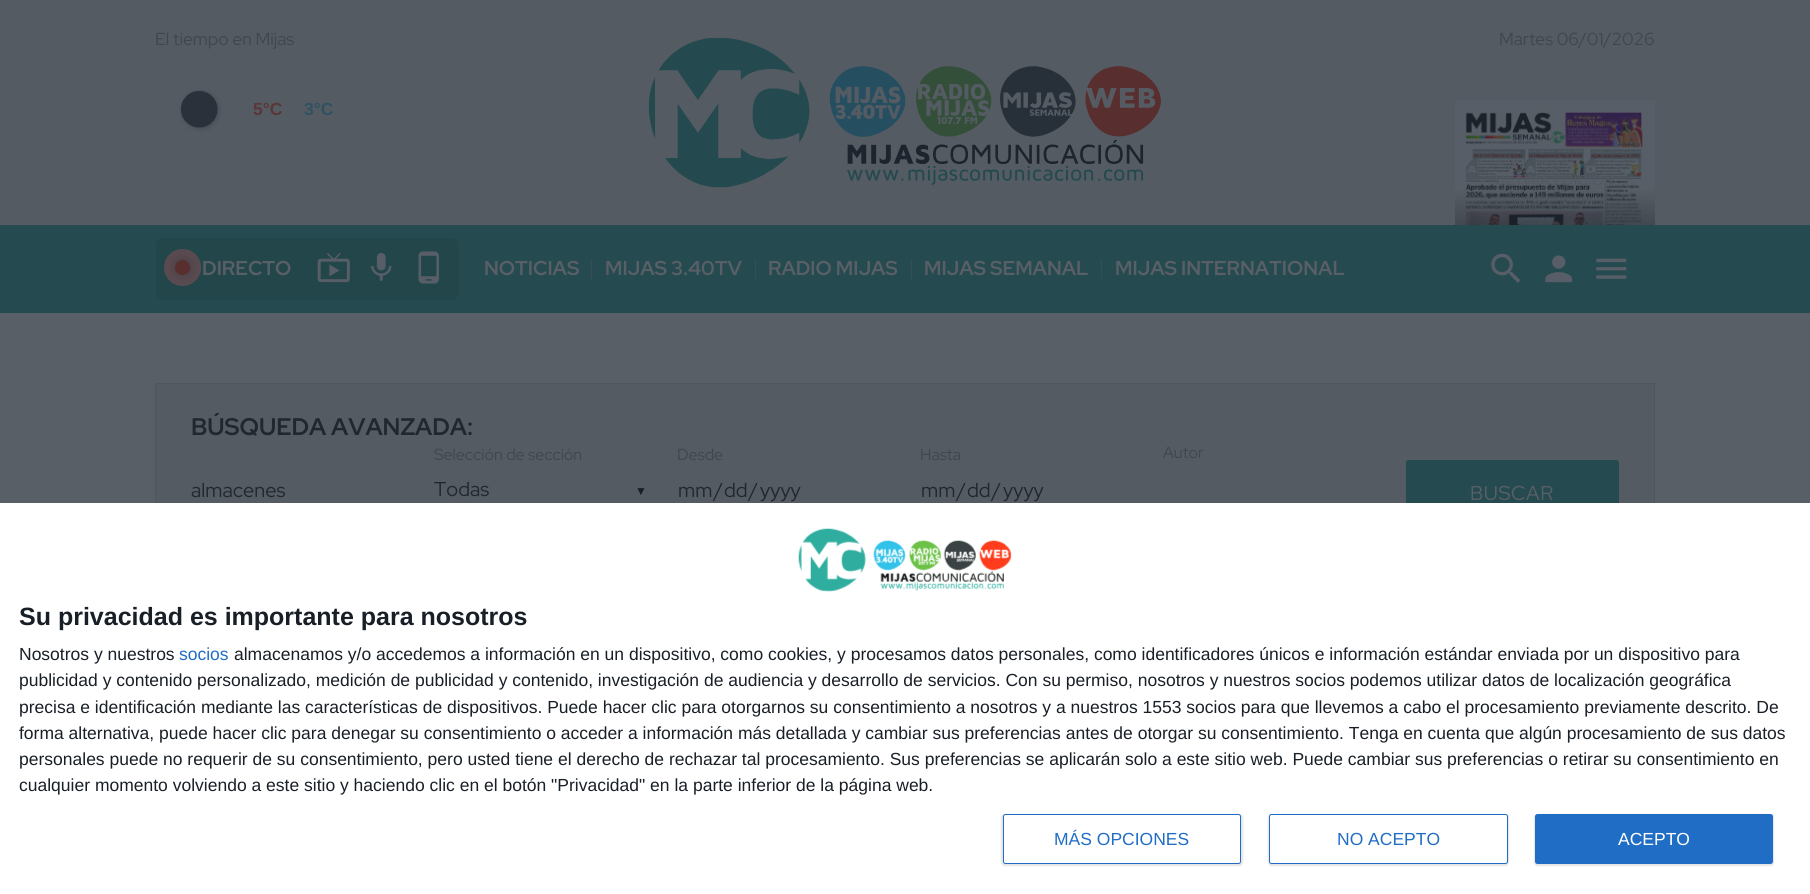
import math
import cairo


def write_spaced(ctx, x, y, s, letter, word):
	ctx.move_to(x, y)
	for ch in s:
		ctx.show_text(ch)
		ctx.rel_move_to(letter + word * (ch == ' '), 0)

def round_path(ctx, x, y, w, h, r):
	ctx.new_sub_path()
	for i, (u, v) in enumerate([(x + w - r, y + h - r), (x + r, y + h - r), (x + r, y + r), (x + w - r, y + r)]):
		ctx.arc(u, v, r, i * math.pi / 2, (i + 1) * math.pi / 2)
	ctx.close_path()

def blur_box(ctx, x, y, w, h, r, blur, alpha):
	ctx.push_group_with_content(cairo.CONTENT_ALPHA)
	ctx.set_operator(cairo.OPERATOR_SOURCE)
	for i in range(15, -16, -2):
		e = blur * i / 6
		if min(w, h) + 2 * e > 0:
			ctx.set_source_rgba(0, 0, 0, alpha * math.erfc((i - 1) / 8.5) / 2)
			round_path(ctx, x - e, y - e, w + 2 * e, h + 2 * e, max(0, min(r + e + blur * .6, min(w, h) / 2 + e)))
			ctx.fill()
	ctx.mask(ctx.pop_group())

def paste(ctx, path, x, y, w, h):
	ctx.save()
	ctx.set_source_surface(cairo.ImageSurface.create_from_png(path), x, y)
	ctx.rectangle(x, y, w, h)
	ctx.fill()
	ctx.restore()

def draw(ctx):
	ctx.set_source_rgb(0.349, 0.373, 0.404)
	ctx.paint()
	ctx.set_source_rgb(0.333, 0.357, 0.388)
	ctx.rectangle(0, 0, 1810, 225)
	ctx.fill()
	ctx.select_font_face('Red Hat Display')
	ctx.set_font_size(17.5)
	ctx.set_source_rgb(0.251, 0.275, 0.31)
	ctx.move_to(155, 45)
	ctx.show_text('El tiempo en Mijas')
	paste(ctx, 'media/1.png', 179, 89, 43, 43)
	ctx.select_font_face('Liberation Sans', cairo.FONT_SLANT_NORMAL, cairo.FONT_WEIGHT_BOLD)
	ctx.set_source_rgb(0.349, 0.212, 0.22)
	ctx.move_to(253, 115)
	ctx.show_text('5°C')
	ctx.set_source_rgb(0.18, 0.322, 0.384)
	ctx.move_to(304, 115)
	ctx.show_text('3°C')
	paste(ctx, 'media/2.png', 649, 38, 512, 150)
	ctx.select_font_face('Red Hat Display')
	ctx.set_source_rgb(0.251, 0.275, 0.31)
	ctx.move_to(1499, 45)
	ctx.show_text('Martes 06/01/2026')
	paste(ctx, 'media/3.png', 1455, 100, 200, 125)
	ctx.set_font_size(14)
	ctx.set_source_rgb(0.322, 0.345, 0.376)
	write_spaced(ctx, 1495, 185, 'ÚLTIMA EDICIÓN', 0.6, 0)
	ctx.set_source_rgb(0.145, 0.29, 0.31)
	ctx.rectangle(0, 225, 1810, 88)
	ctx.fill()
	ctx.set_source_rgb(0.137, 0.275, 0.294)
	round_path(ctx, 156, 238, 303, 62, 8)
	ctx.fill()
	ctx.set_source_rgb(0.349, 0.294, 0.314)
	ctx.arc(182.5, 267.5, 18.5, 0, 2 * math.pi)
	ctx.fill()
	ctx.set_source_rgb(0.098, 0.122, 0.153)
	blur_box(ctx, 175, 260, 15, 15, 7.5, 5, 0.3)
	ctx.set_source_rgb(0.349, 0.18, 0.18)
	ctx.arc(182.5, 267.5, 7.5, 0, 2 * math.pi)
	ctx.fill()
	ctx.select_font_face('Red Hat Display', cairo.FONT_SLANT_NORMAL, cairo.FONT_WEIGHT_BOLD)
	ctx.set_font_size(20)
	ctx.set_source_rgb(0.349, 0.373, 0.404)
	ctx.move_to(202, 275)
	ctx.show_text('DIRECTO')
	paste(ctx, 'media/4.png', 317, 253, 33, 30)
	paste(ctx, 'media/5.png', 371, 252, 21, 29)
	paste(ctx, 'media/6.png', 418, 251, 21, 33)
	ctx.set_source_rgb(0.204, 0.314, 0.337)
	ctx.rectangle(591, 259, 1, 20)
	ctx.fill()
	ctx.set_source_rgb(0.349, 0.373, 0.404)
	ctx.move_to(484, 275)
	ctx.show_text('NOTICIAS')
	ctx.set_source_rgb(0.204, 0.314, 0.337)
	ctx.rectangle(755, 259, 1, 20)
	ctx.fill()
	ctx.set_source_rgb(0.349, 0.373, 0.404)
	ctx.move_to(605, 275)
	ctx.show_text('MIJAS 3.40TV')
	ctx.set_source_rgb(0.204, 0.314, 0.337)
	ctx.rectangle(911, 259, 1, 20)
	ctx.fill()
	ctx.set_source_rgb(0.349, 0.373, 0.404)
	ctx.move_to(768, 275)
	ctx.show_text('RADIO MIJAS')
	ctx.set_source_rgb(0.204, 0.314, 0.337)
	ctx.rectangle(1101, 259, 1, 20)
	ctx.fill()
	ctx.set_source_rgb(0.349, 0.373, 0.404)
	ctx.move_to(924, 275)
	ctx.show_text('MIJAS SEMANAL')
	ctx.move_to(1115, 275)
	ctx.show_text('MIJAS INTERNATIONAL')
	paste(ctx, 'media/7.png', 1491, 253, 30, 30)
	paste(ctx, 'media/8.png', 1545, 255, 28, 28)
	paste(ctx, 'media/9.png', 1596, 258, 31, 21)
	ctx.set_source_rgb(0.333, 0.357, 0.388)
	ctx.rectangle(156, 384, 1498, 119)
	ctx.fill()
	ctx.rectangle(155.5, 383.5, 1499, 184)
	ctx.set_source_rgb(0.31, 0.333, 0.365)
	ctx.set_line_width(1)
	ctx.stroke()
	ctx.set_font_size(24)
	ctx.set_source_rgb(0.129, 0.153, 0.184)
	ctx.move_to(191, 435)
	ctx.show_text('BÚSQUEDA AVANZADA:')
	ctx.select_font_face('Red Hat Display')
	ctx.set_font_size(20)
	ctx.move_to(191, 497)
	ctx.show_text('almacenes')
	ctx.set_font_size(16)
	ctx.set_source_rgb(0.251, 0.275, 0.31)
	ctx.move_to(434, 460)
	ctx.show_text('Selección de sección')
	ctx.set_font_size(20)
	ctx.set_source_rgb(0.129, 0.153, 0.184)
	ctx.move_to(434, 496)
	ctx.show_text('Todas')
	ctx.select_font_face('Liberation Sans')
	ctx.set_font_size(12)
	ctx.set_source_rgb(0.098, 0.122, 0.153)
	ctx.move_to(635, 495)
	ctx.show_text('▼')
	ctx.select_font_face('Red Hat Display')
	ctx.set_font_size(16)
	ctx.set_source_rgb(0.251, 0.275, 0.31)
	ctx.move_to(677, 460)
	ctx.show_text('Desde')
	ctx.set_font_size(20)
	ctx.set_source_rgb(0.129, 0.153, 0.184)
	for x, y, s in [
		(678, 497, 'mm'),
		(714, 497, '/'),
		(724, 497, 'dd'),
		(749, 497, '/'),
		(760, 497, 'yyyy'),
	]:
		ctx.move_to(x, y)
		ctx.show_text(s)
	ctx.set_font_size(16)
	ctx.set_source_rgb(0.251, 0.275, 0.31)
	ctx.move_to(920, 460)
	ctx.show_text('Hasta')
	ctx.set_font_size(20)
	ctx.set_source_rgb(0.129, 0.153, 0.184)
	for x, y, s in [
		(921, 497, 'mm'),
		(957, 497, '/'),
		(967, 497, 'dd'),
		(992, 497, '/'),
		(1003, 497, 'yyyy'),
	]:
		ctx.move_to(x, y)
		ctx.show_text(s)
	ctx.set_font_size(16)
	ctx.set_source_rgb(0.251, 0.275, 0.31)
	ctx.move_to(1163, 458)
	ctx.show_text('Autor')
	ctx.set_source_rgb(0.145, 0.29, 0.31)
	round_path(ctx, 1406, 460, 213, 68, 2.5)
	ctx.fill()
	ctx.set_font_size(20)
	ctx.set_source_rgb(0.349, 0.373, 0.404)
	write_spaced(ctx, 1470, 500, 'BUSCAR', 0.6, 0)
	ctx.set_source_rgb(1, 1, 1)
	ctx.rectangle(0, 503, 1810, 391)
	ctx.fill()
	paste(ctx, 'media/10.png', 798, 528, 214, 64)
	ctx.select_font_face('Liberation Sans', cairo.FONT_SLANT_NORMAL, cairo.FONT_WEIGHT_BOLD)
	ctx.set_font_size(25)
	ctx.set_source_rgb(0.098, 0.122, 0.153)
	ctx.move_to(19, 625)
	ctx.show_text('Su privacidad es importante para nosotros')
	ctx.select_font_face('Liberation Sans')
	ctx.set_font_size(17.5)
	ctx.move_to(19, 660)
	ctx.show_text('Nosotros y nuestros')
	ctx.set_source_rgb(0.125, 0.427, 0.773)
	ctx.move_to(179, 660)
	ctx.show_text('socios')
	ctx.set_source_rgb(0.098, 0.122, 0.153)
	for x, y, s in [
		(234, 660, 'almacenamos y/o accedemos a información en un dispositivo, como cookies, y procesamos datos personales, como identificadores únicos e información estándar enviada por un dispositivo para'),
		(19, 686, 'publicidad y contenido personalizado, medición de publicidad y contenido, investigación de audiencia y desarrollo de servicios. Con su permiso, nosotros y nuestros socios podemos utilizar datos de localización geográfica'),
		(19, 713, 'precisa e identificación mediante las características de dispositivos. Puede hacer clic para otorgarnos su consentimiento a nosotros y a nuestros 1553 socios para que llevemos a cabo el procesamiento previamente descrito. De'),
		(19, 739, 'forma alternativa, puede hacer clic para denegar su consentimiento o acceder a información más detallada y cambiar sus preferencias antes de otorgar su consentimiento. Tenga en cuenta que algún procesamiento de sus datos'),
		(19, 765, 'personales puede no requerir de su consentimiento, pero usted tiene el derecho de rechazar tal procesamiento. Sus preferencias se aplicarán solo a este sitio web. Puede cambiar sus preferencias o retirar su consentimiento en'),
		(19, 791, 'cualquier momento volviendo a este sitio y haciendo clic en el botón "Privacidad" en la parte inferior de la página web.'),
	]:
		ctx.move_to(x, y)
		ctx.show_text(s)
	ctx.set_source_rgb(0, 0, 0)
	blur_box(ctx, 1001, 814, 242, 52, 4, 0.5, 0.1)
	ctx.set_source_rgb(1, 1, 1)
	round_path(ctx, 1003.5, 814.5, 237, 49, 2)
	ctx.fill_preserve()
	ctx.set_source_rgb(0.125, 0.427, 0.773)
	ctx.stroke()
	ctx.move_to(1054, 845)
	ctx.show_text('MÁS OPCIONES')
	ctx.set_source_rgb(0, 0, 0)
	blur_box(ctx, 1268, 814, 241, 52, 4, 0.5, 0.1)
	ctx.set_source_rgb(1, 1, 1)
	round_path(ctx, 1269.5, 814.5, 238, 49, 2)
	ctx.fill_preserve()
	ctx.set_source_rgb(0.125, 0.427, 0.773)
	ctx.stroke()
	ctx.move_to(1337, 845)
	ctx.show_text('NO ACEPTO')
	ctx.set_source_rgb(0, 0, 0)
	blur_box(ctx, 1534, 814, 240, 52, 4, 0.5, 0.1)
	ctx.set_source_rgb(0.125, 0.427, 0.773)
	round_path(ctx, 1535, 814, 238, 50, 2.5)
	ctx.fill()
	ctx.set_source_rgb(1, 1, 1)
	ctx.move_to(1618, 845)
	ctx.show_text('ACEPTO')


surface = cairo.ImageSurface(cairo.FORMAT_RGB24, 1810, 894)
ctx = cairo.Context(surface)
options = cairo.FontOptions()
options.set_hint_metrics(cairo.HINT_METRICS_OFF)
options.set_hint_style(cairo.HINT_STYLE_NONE)
ctx.set_font_options(options)
ctx.set_miter_limit(4)
draw(ctx)
surface.write_to_png('image.png')
